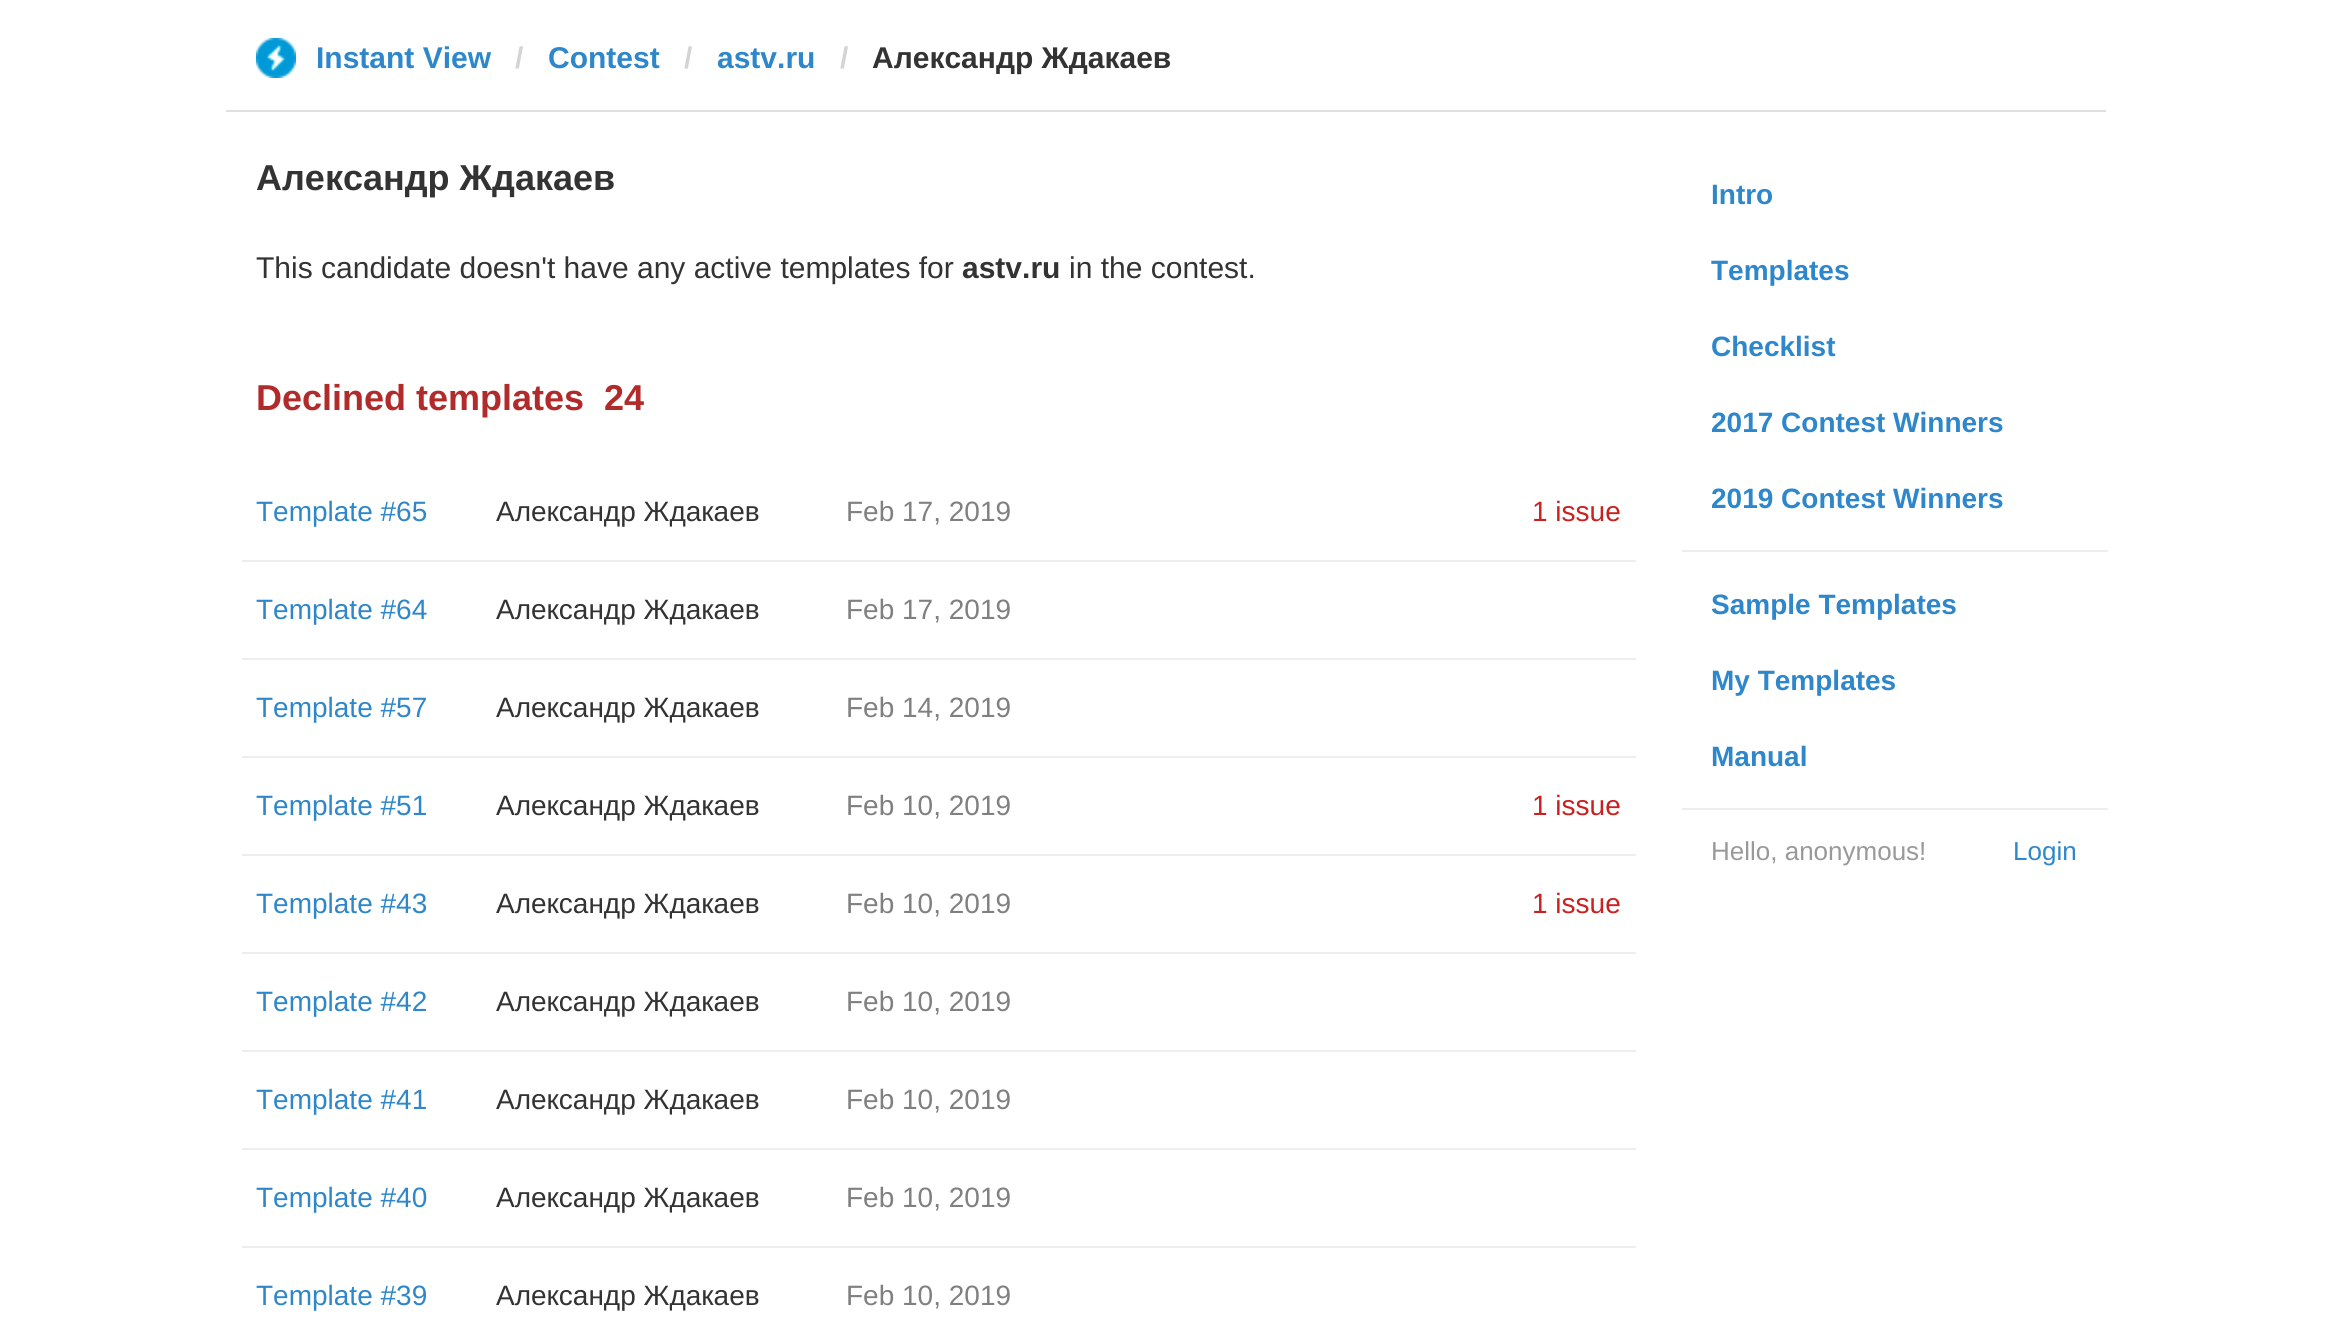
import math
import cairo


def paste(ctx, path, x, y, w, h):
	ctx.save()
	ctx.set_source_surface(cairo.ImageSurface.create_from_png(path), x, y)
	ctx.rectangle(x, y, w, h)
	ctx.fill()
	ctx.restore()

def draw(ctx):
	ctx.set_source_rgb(1, 1, 1)
	ctx.paint()
	ctx.set_source_rgb(0.878, 0.878, 0.878)
	ctx.rectangle(226, 110, 1880, 2)
	ctx.fill()
	paste(ctx, 'media/1.png', 256, 38, 40, 40)
	ctx.select_font_face('Liberation Sans', cairo.FONT_SLANT_NORMAL, cairo.FONT_WEIGHT_BOLD)
	ctx.set_font_size(30)
	ctx.set_source_rgb(0.18, 0.529, 0.792)
	ctx.move_to(316, 68)
	ctx.show_text('Instant View')
	ctx.set_source_rgb(0.831, 0.831, 0.831)
	ctx.move_to(515, 68)
	ctx.show_text('/')
	ctx.set_source_rgb(0.18, 0.529, 0.792)
	ctx.move_to(548, 68)
	ctx.show_text('Contest')
	ctx.set_source_rgb(0.831, 0.831, 0.831)
	ctx.move_to(684, 68)
	ctx.show_text('/')
	ctx.set_source_rgb(0.18, 0.529, 0.792)
	ctx.move_to(717, 68)
	ctx.show_text('astv.ru')
	ctx.set_source_rgb(0.831, 0.831, 0.831)
	ctx.move_to(840, 68)
	ctx.show_text('/')
	ctx.set_source_rgb(0.2, 0.2, 0.2)
	ctx.move_to(872, 68)
	ctx.show_text('Александр Ждакаев')
	ctx.set_font_size(36)
	ctx.move_to(256, 190)
	ctx.show_text('Александр Ждакаев')
	ctx.select_font_face('Liberation Sans')
	ctx.set_font_size(30)
	ctx.move_to(256, 278)
	ctx.show_text('This candidate doesn\'t have any active templates for')
	ctx.select_font_face('Liberation Sans', cairo.FONT_SLANT_NORMAL, cairo.FONT_WEIGHT_BOLD)
	ctx.move_to(962, 278)
	ctx.show_text('astv.ru')
	ctx.select_font_face('Liberation Sans')
	ctx.move_to(1069, 278)
	ctx.show_text('in the contest.')
	ctx.select_font_face('Liberation Sans', cairo.FONT_SLANT_NORMAL, cairo.FONT_WEIGHT_BOLD)
	ctx.set_font_size(36)
	ctx.set_source_rgb(0.694, 0.169, 0.169)
	ctx.move_to(256, 410)
	ctx.show_text('Declined templates')
	ctx.move_to(604, 410)
	ctx.show_text('24')
	ctx.set_source_rgb(0.929, 0.929, 0.929)
	ctx.rectangle(242, 560, 1394, 2)
	ctx.fill()
	ctx.select_font_face('Liberation Sans')
	ctx.set_font_size(28)
	ctx.set_source_rgb(0.18, 0.529, 0.792)
	ctx.move_to(256, 521)
	ctx.show_text('Template #65')
	ctx.set_source_rgb(0.2, 0.2, 0.2)
	ctx.move_to(496, 521)
	ctx.show_text('Александр Ждакаев')
	ctx.set_source_rgb(0.502, 0.502, 0.502)
	ctx.move_to(846, 521)
	ctx.show_text('Feb 17, 2019')
	ctx.set_source_rgb(0.796, 0.125, 0.125)
	ctx.move_to(1532, 521)
	ctx.show_text('1 issue')
	ctx.set_source_rgb(0.929, 0.929, 0.929)
	ctx.rectangle(242, 658, 1394, 2)
	ctx.fill()
	ctx.set_source_rgb(0.18, 0.529, 0.792)
	ctx.move_to(256, 619)
	ctx.show_text('Template #64')
	ctx.set_source_rgb(0.2, 0.2, 0.2)
	ctx.move_to(496, 619)
	ctx.show_text('Александр Ждакаев')
	ctx.set_source_rgb(0.502, 0.502, 0.502)
	ctx.move_to(846, 619)
	ctx.show_text('Feb 17, 2019')
	ctx.set_source_rgb(0.929, 0.929, 0.929)
	ctx.rectangle(242, 756, 1394, 2)
	ctx.fill()
	ctx.set_source_rgb(0.18, 0.529, 0.792)
	ctx.move_to(256, 717)
	ctx.show_text('Template #57')
	ctx.set_source_rgb(0.2, 0.2, 0.2)
	ctx.move_to(496, 717)
	ctx.show_text('Александр Ждакаев')
	ctx.set_source_rgb(0.502, 0.502, 0.502)
	ctx.move_to(846, 717)
	ctx.show_text('Feb 14, 2019')
	ctx.set_source_rgb(0.929, 0.929, 0.929)
	ctx.rectangle(242, 854, 1394, 2)
	ctx.fill()
	ctx.set_source_rgb(0.18, 0.529, 0.792)
	ctx.move_to(256, 815)
	ctx.show_text('Template #51')
	ctx.set_source_rgb(0.2, 0.2, 0.2)
	ctx.move_to(496, 815)
	ctx.show_text('Александр Ждакаев')
	ctx.set_source_rgb(0.502, 0.502, 0.502)
	ctx.move_to(846, 815)
	ctx.show_text('Feb 10, 2019')
	ctx.set_source_rgb(0.796, 0.125, 0.125)
	ctx.move_to(1532, 815)
	ctx.show_text('1 issue')
	ctx.set_source_rgb(0.929, 0.929, 0.929)
	ctx.rectangle(242, 952, 1394, 2)
	ctx.fill()
	ctx.set_source_rgb(0.18, 0.529, 0.792)
	ctx.move_to(256, 913)
	ctx.show_text('Template #43')
	ctx.set_source_rgb(0.2, 0.2, 0.2)
	ctx.move_to(496, 913)
	ctx.show_text('Александр Ждакаев')
	ctx.set_source_rgb(0.502, 0.502, 0.502)
	ctx.move_to(846, 913)
	ctx.show_text('Feb 10, 2019')
	ctx.set_source_rgb(0.796, 0.125, 0.125)
	ctx.move_to(1532, 913)
	ctx.show_text('1 issue')
	ctx.set_source_rgb(0.929, 0.929, 0.929)
	ctx.rectangle(242, 1050, 1394, 2)
	ctx.fill()
	ctx.set_source_rgb(0.18, 0.529, 0.792)
	ctx.move_to(256, 1011)
	ctx.show_text('Template #42')
	ctx.set_source_rgb(0.2, 0.2, 0.2)
	ctx.move_to(496, 1011)
	ctx.show_text('Александр Ждакаев')
	ctx.set_source_rgb(0.502, 0.502, 0.502)
	ctx.move_to(846, 1011)
	ctx.show_text('Feb 10, 2019')
	ctx.set_source_rgb(0.929, 0.929, 0.929)
	ctx.rectangle(242, 1148, 1394, 2)
	ctx.fill()
	ctx.set_source_rgb(0.18, 0.529, 0.792)
	ctx.move_to(256, 1109)
	ctx.show_text('Template #41')
	ctx.set_source_rgb(0.2, 0.2, 0.2)
	ctx.move_to(496, 1109)
	ctx.show_text('Александр Ждакаев')
	ctx.set_source_rgb(0.502, 0.502, 0.502)
	ctx.move_to(846, 1109)
	ctx.show_text('Feb 10, 2019')
	ctx.set_source_rgb(0.929, 0.929, 0.929)
	ctx.rectangle(242, 1246, 1394, 2)
	ctx.fill()
	ctx.set_source_rgb(0.18, 0.529, 0.792)
	ctx.move_to(256, 1207)
	ctx.show_text('Template #40')
	ctx.set_source_rgb(0.2, 0.2, 0.2)
	ctx.move_to(496, 1207)
	ctx.show_text('Александр Ждакаев')
	ctx.set_source_rgb(0.502, 0.502, 0.502)
	ctx.move_to(846, 1207)
	ctx.show_text('Feb 10, 2019')
	ctx.set_source_rgb(0.18, 0.529, 0.792)
	ctx.move_to(256, 1305)
	ctx.show_text('Template #39')
	ctx.set_source_rgb(0.2, 0.2, 0.2)
	ctx.move_to(496, 1305)
	ctx.show_text('Александр Ждакаев')
	ctx.set_source_rgb(0.502, 0.502, 0.502)
	ctx.move_to(846, 1305)
	ctx.show_text('Feb 10, 2019')
	ctx.select_font_face('Liberation Sans', cairo.FONT_SLANT_NORMAL, cairo.FONT_WEIGHT_BOLD)
	ctx.set_source_rgb(0.18, 0.529, 0.792)
	for x, y, s in [
		(1711, 204, 'Intro'),
		(1711, 280, 'Templates'),
		(1711, 356, 'Checklist'),
		(1711, 432, '2017 Contest Winners'),
		(1711, 508, '2019 Contest Winners'),
	]:
		ctx.move_to(x, y)
		ctx.show_text(s)
	ctx.set_source_rgb(0.929, 0.929, 0.929)
	ctx.rectangle(1682, 550, 426, 2)
	ctx.fill()
	ctx.set_source_rgb(0.18, 0.529, 0.792)
	for x, y, s in [
		(1711, 614, 'Sample Templates'),
		(1711, 690, 'My Templates'),
		(1711, 766, 'Manual'),
	]:
		ctx.move_to(x, y)
		ctx.show_text(s)
	ctx.set_source_rgb(0.929, 0.929, 0.929)
	ctx.rectangle(1682, 808, 426, 2)
	ctx.fill()
	ctx.select_font_face('Liberation Sans')
	ctx.set_font_size(26)
	ctx.set_source_rgb(0.6, 0.6, 0.6)
	ctx.move_to(1711, 860)
	ctx.show_text('Hello, anonymous!')
	ctx.set_source_rgb(0.18, 0.529, 0.792)
	ctx.move_to(2013, 860)
	ctx.show_text('Login')


surface = cairo.ImageSurface(cairo.FORMAT_RGB24, 2331, 1344)
ctx = cairo.Context(surface)
options = cairo.FontOptions()
options.set_hint_metrics(cairo.HINT_METRICS_OFF)
options.set_hint_style(cairo.HINT_STYLE_NONE)
ctx.set_font_options(options)
ctx.set_miter_limit(4)
draw(ctx)
surface.write_to_png('image.png')
